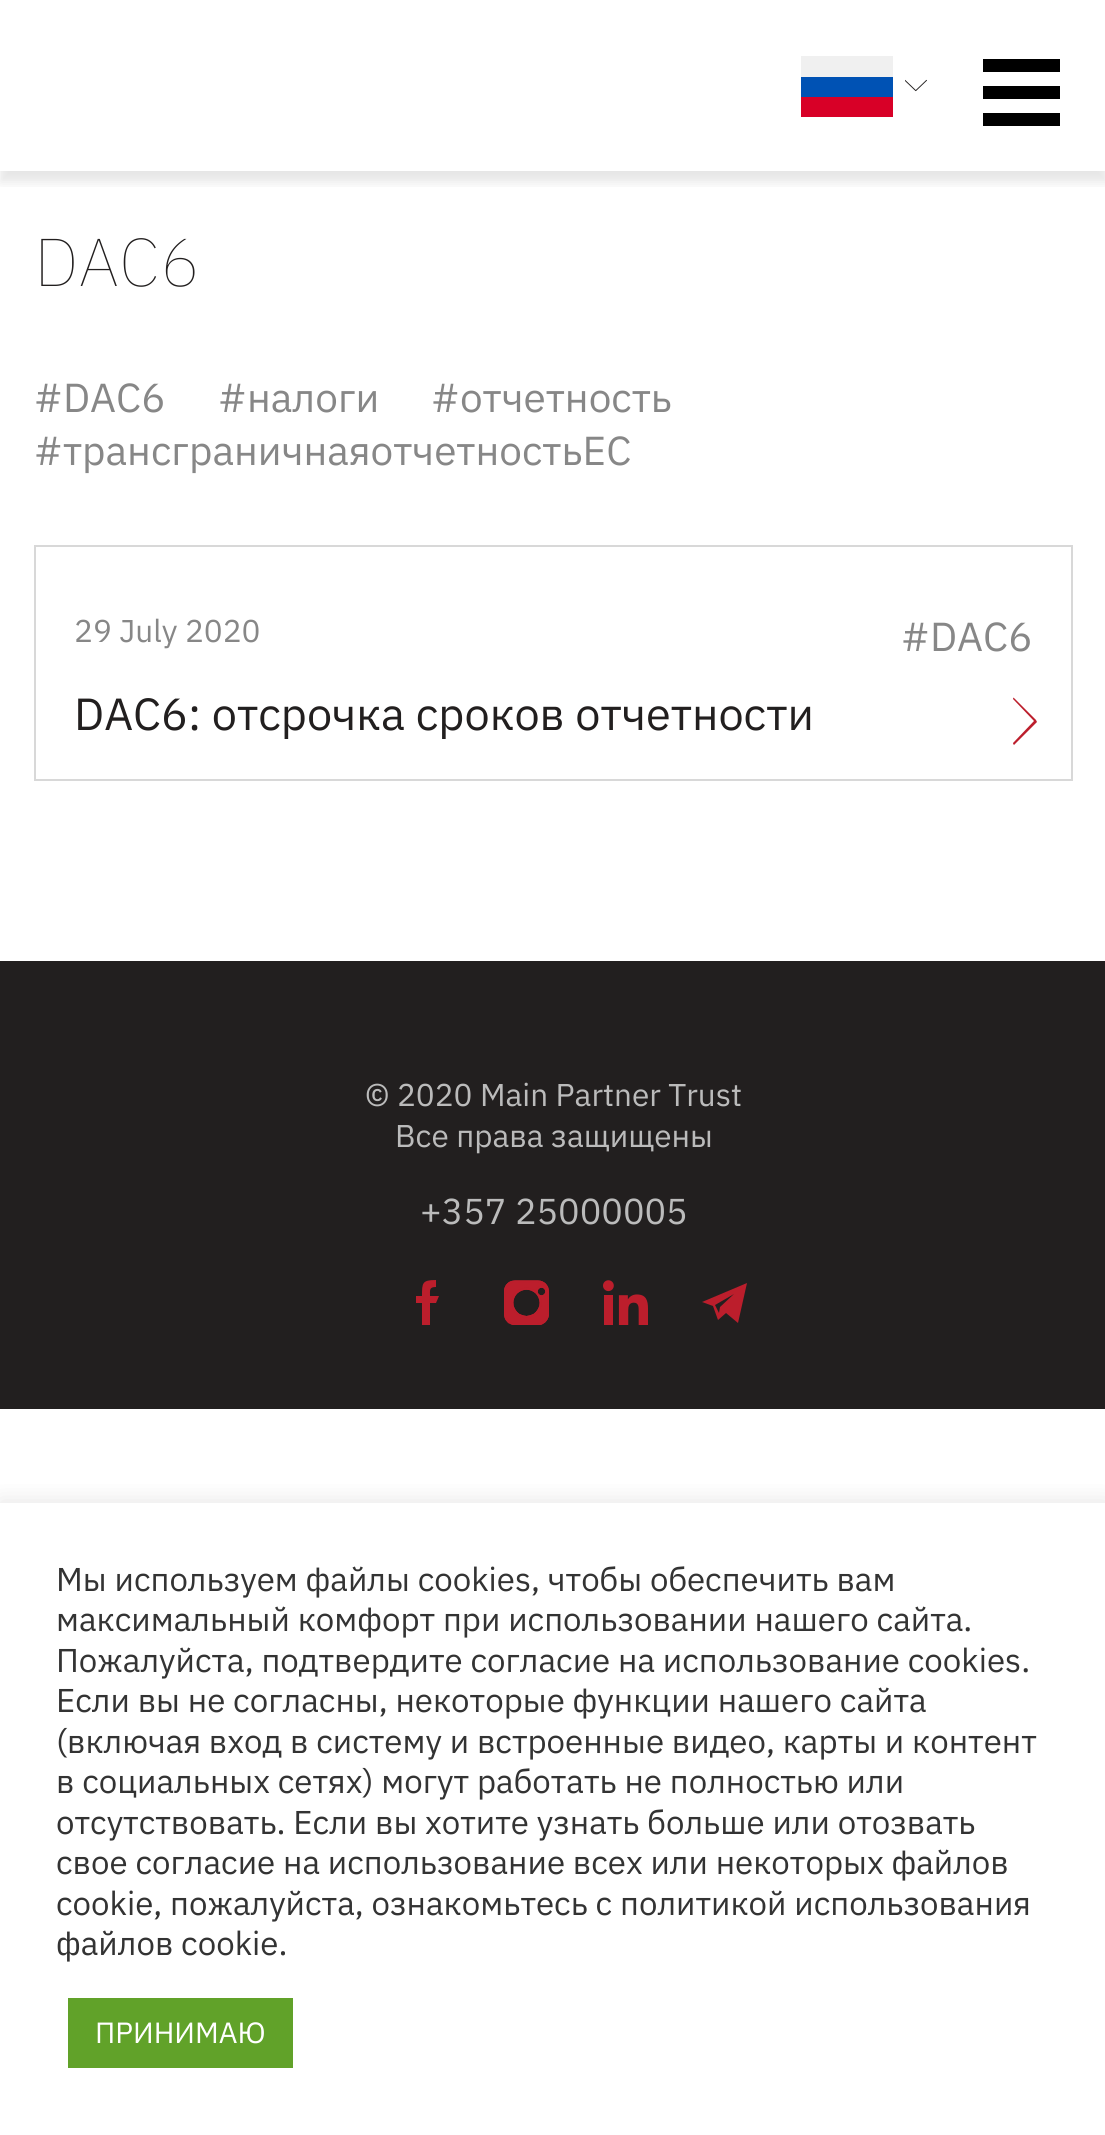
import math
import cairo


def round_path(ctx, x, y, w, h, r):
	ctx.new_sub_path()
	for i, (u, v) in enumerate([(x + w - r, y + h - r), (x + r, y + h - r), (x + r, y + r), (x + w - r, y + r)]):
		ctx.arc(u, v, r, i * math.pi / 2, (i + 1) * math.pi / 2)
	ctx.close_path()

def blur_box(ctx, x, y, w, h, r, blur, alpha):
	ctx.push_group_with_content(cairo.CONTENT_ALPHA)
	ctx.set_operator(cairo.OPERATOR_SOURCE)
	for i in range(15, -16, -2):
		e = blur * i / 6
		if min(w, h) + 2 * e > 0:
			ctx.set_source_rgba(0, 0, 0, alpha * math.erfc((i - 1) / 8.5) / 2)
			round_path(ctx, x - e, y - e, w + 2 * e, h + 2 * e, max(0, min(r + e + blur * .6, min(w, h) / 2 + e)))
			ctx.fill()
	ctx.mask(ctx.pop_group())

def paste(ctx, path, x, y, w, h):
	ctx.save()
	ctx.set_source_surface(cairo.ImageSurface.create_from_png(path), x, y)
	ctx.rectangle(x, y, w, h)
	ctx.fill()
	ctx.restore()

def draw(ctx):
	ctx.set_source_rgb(1, 1, 1)
	ctx.paint()
	ctx.save()
	ctx.rectangle(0, 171, 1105, 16)
	ctx.clip()
	ctx.set_source_rgb(0, 0, 0)
	blur_box(ctx, 0, 11, 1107, 171, 0, 5.5, 0.1)
	ctx.restore()
	ctx.set_source_rgb(0.941, 0.941, 0.941)
	ctx.rectangle(801, 56, 92, 21)
	ctx.fill()
	ctx.set_source_rgb(0, 0.322, 0.706)
	ctx.rectangle(801, 77, 92, 20)
	ctx.fill()
	ctx.set_source_rgb(0.847, 0, 0.153)
	ctx.rectangle(801, 97, 92, 20)
	ctx.fill()
	paste(ctx, 'media/1.png', 905, 79, 22, 13)
	ctx.set_source_rgb(0, 0, 0)
	ctx.rectangle(983, 59, 77, 13)
	ctx.rectangle(983, 86, 77, 13)
	ctx.rectangle(983, 113, 77, 13)
	ctx.fill()
	ctx.select_font_face('IBM Plex Sans Thin')
	ctx.set_font_size(67.5)
	ctx.set_source_rgb(0.133, 0.122, 0.122)
	ctx.move_to(34, 286)
	ctx.show_text('DAC6')
	ctx.select_font_face('IBM Plex Sans')
	ctx.set_font_size(40.5)
	ctx.set_source_rgb(0.529, 0.529, 0.529)
	for x, y, s in [
		(34, 412, '#DAC6'),
		(218, 412, '#налоги'),
		(431, 412, '#отчетность'),
		(34, 465, '#трансграничнаяотчетностьЕС'),
	]:
		ctx.move_to(x, y)
		ctx.show_text(s)
	ctx.rectangle(35, 546, 1037, 234)
	ctx.set_source_rgb(0.847, 0.847, 0.847)
	ctx.stroke()
	ctx.set_font_size(31.5)
	ctx.set_source_rgb(0.529, 0.529, 0.529)
	ctx.move_to(74, 642)
	ctx.show_text('29 July 2020')
	ctx.set_font_size(40.5)
	ctx.move_to(901, 651)
	ctx.show_text('#DAC6')
	ctx.set_font_size(45)
	ctx.set_source_rgb(0.133, 0.122, 0.122)
	ctx.move_to(74, 730)
	ctx.show_text('DAC6: отсрочка сроков отчетности')
	ctx.set_source_rgb(0.737, 0.118, 0.173)
	ctx.new_path()
	ctx.move_to(1036, 720)
	ctx.line_to(1014, 698)
	ctx.curve_to(1014, 697, 1013, 698, 1013, 699)
	ctx.line_to(1034, 721)
	ctx.line_to(1013, 743)
	ctx.curve_to(1013, 744, 1014, 745, 1014, 745)
	ctx.line_to(1037, 722)
	ctx.close_path()
	ctx.fill()
	ctx.set_source_rgb(0.133, 0.122, 0.122)
	ctx.rectangle(0, 961, 1105, 448)
	ctx.fill()
	ctx.set_font_size(31.5)
	ctx.set_source_rgb(0.733, 0.733, 0.733)
	ctx.move_to(365, 1106)
	ctx.show_text('© 2020 Main Partner Trust')
	ctx.move_to(395, 1147)
	ctx.show_text('Все права защищены')
	ctx.set_font_size(36)
	ctx.move_to(420, 1224)
	ctx.show_text('+357 25000005')
	ctx.set_source_rgb(0.737, 0.118, 0.173)
	ctx.new_path()
	ctx.move_to(430, 1296)
	ctx.curve_to(430, 1290, 429, 1287, 436, 1287)
	ctx.line_to(436, 1280)
	ctx.curve_to(422, 1280, 422, 1283, 422, 1296)
	ctx.line_to(416, 1296)
	ctx.line_to(416, 1303)
	ctx.line_to(422, 1303)
	ctx.line_to(422, 1325)
	ctx.line_to(430, 1325)
	ctx.line_to(430, 1303)
	ctx.line_to(436, 1303)
	ctx.line_to(439, 1296)
	ctx.close_path()
	ctx.fill()
	paste(ctx, 'media/2.png', 504, 1280, 45, 45)
	paste(ctx, 'media/3.png', 603, 1280, 45, 45)
	ctx.new_path()
	ctx.move_to(713, 1306)
	ctx.line_to(718, 1320)
	ctx.line_to(726, 1313)
	ctx.line_to(738, 1323)
	ctx.line_to(747, 1283)
	ctx.line_to(702, 1302)
	ctx.close_path()
	ctx.move_to(734, 1294)
	ctx.line_to(720, 1307)
	ctx.line_to(719, 1313)
	ctx.line_to(715, 1305)
	ctx.close_path()
	ctx.fill()
	ctx.save()
	ctx.rectangle(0, 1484, 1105, 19)
	ctx.clip()
	ctx.set_source_rgb(0.675, 0.671, 0.671)
	blur_box(ctx, 0, 1501, 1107, 632, 0, 11, 0.3)
	ctx.restore()
	ctx.set_font_size(33)
	ctx.set_source_rgb(0.2, 0.2, 0.2)
	for x, y, s in [
		(56, 1591, 'Мы используем файлы cookies, чтобы обеспечить вам'),
		(56, 1631, 'максимальный комфорт при использовании нашего сайта.'),
		(56, 1672, 'Пожалуйста, подтвердите согласие на использование cookies.'),
		(56, 1712, 'Если вы не согласны, некоторые функции нашего сайта'),
		(56, 1753, '(включая вход в систему и встроенные видео, карты и контент'),
		(56, 1793, 'в социальных сетях) могут работать не полностью или'),
		(56, 1834, 'отсутствовать. Если вы хотите узнать больше или отозвать'),
		(56, 1874, 'свое согласие на использование всех или некоторых файлов'),
		(56, 1915, 'cookie, пожалуйста, ознакомьтесь с'),
		(620, 1915, 'политикой использования'),
		(56, 1955, 'файлов cookie.'),
	]:
		ctx.move_to(x, y)
		ctx.show_text(s)
	ctx.set_source_rgb(0.38, 0.635, 0.161)
	ctx.rectangle(68, 1998, 225, 70)
	ctx.fill()
	ctx.set_font_size(29.25)
	ctx.set_source_rgb(1, 1, 1)
	ctx.move_to(95, 2043)
	ctx.show_text('ПРИНИМАЮ')


surface = cairo.ImageSurface(cairo.FORMAT_RGB24, 1105, 2135)
ctx = cairo.Context(surface)
options = cairo.FontOptions()
options.set_hint_metrics(cairo.HINT_METRICS_OFF)
options.set_hint_style(cairo.HINT_STYLE_NONE)
ctx.set_font_options(options)
ctx.set_miter_limit(4)
draw(ctx)
surface.write_to_png('image.png')
